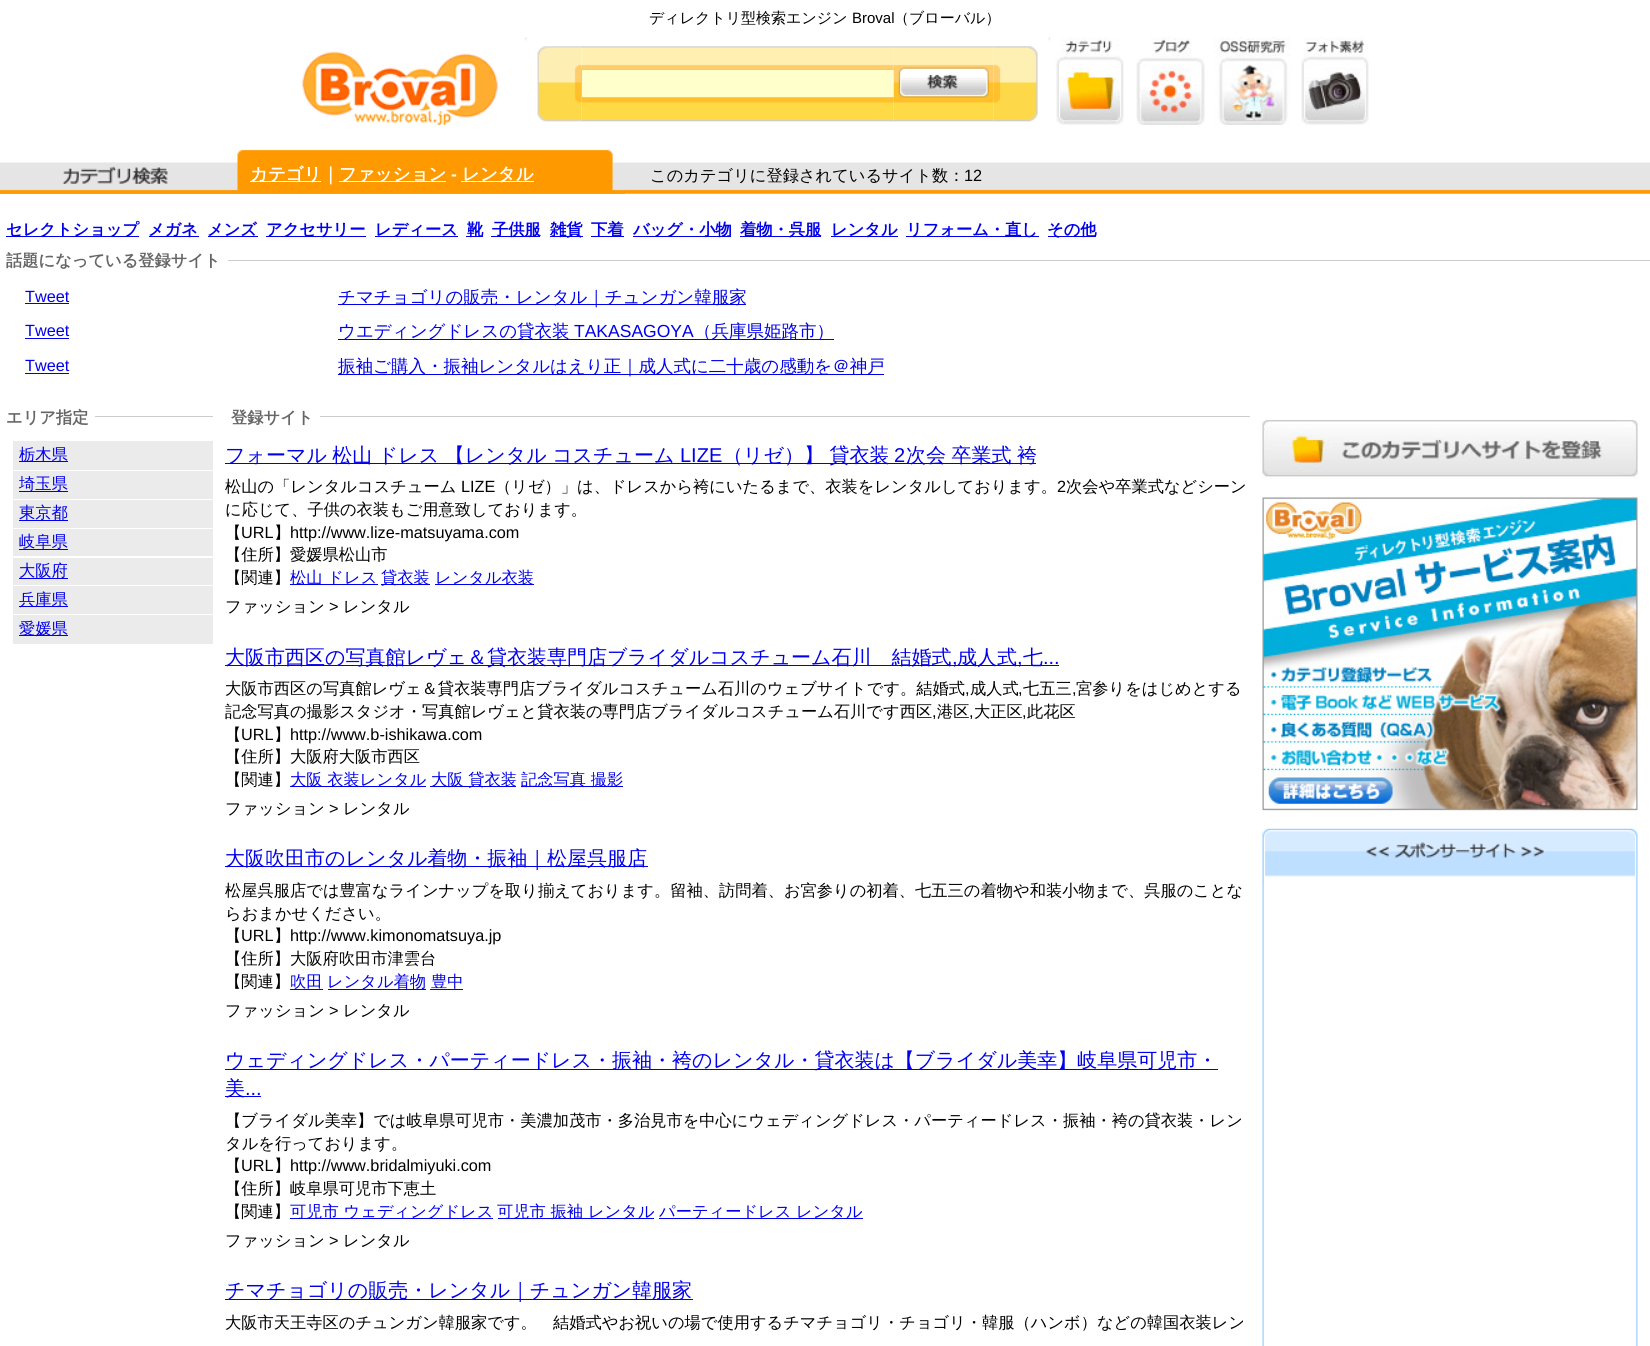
import math
import cairo


def write_spaced(ctx, x, y, s, letter, word):
	ctx.move_to(x, y)
	for ch in s:
		ctx.show_text(ch)
		ctx.rel_move_to(letter + word * (ch == ' '), 0)

def paste(ctx, path, x, y, w, h):
	ctx.save()
	ctx.set_source_surface(cairo.ImageSurface.create_from_png(path), x, y)
	ctx.rectangle(x, y, w, h)
	ctx.fill()
	ctx.restore()

def draw(ctx):
	ctx.set_source_rgb(1, 1, 1)
	ctx.paint()
	paste(ctx, 'media/1.png', 0, 162, 1650, 32)
	ctx.select_font_face('WenQuanYi Zen Hei Medium')
	ctx.set_font_size(15)
	ctx.set_source_rgb(0, 0, 0)
	ctx.move_to(649, 23)
	ctx.show_text('ディレクトリ型検索エンジン')
	ctx.select_font_face('Liberation Sans')
	ctx.move_to(852, 23)
	ctx.show_text('Broval')
	ctx.select_font_face('WenQuanYi Zen Hei Medium')
	ctx.move_to(894, 23)
	ctx.show_text('（ブローバル）')
	paste(ctx, 'media/2.png', 302, 51, 196, 74)
	paste(ctx, 'media/3.png', 525, 37, 57, 85)
	paste(ctx, 'media/4.png', 581, 46, 313, 76)
	ctx.set_source_rgb(1, 1, 0.8)
	ctx.rectangle(582, 70, 312, 27)
	ctx.fill()
	ctx.rectangle(581.5, 69.5, 317, 28)
	ctx.set_source_rgb(0.8, 0.8, 0.8)
	ctx.set_line_width(1)
	ctx.stroke()
	paste(ctx, 'media/5.png', 893, 46, 101, 76)
	paste(ctx, 'media/6.png', 898, 67, 91, 31)
	paste(ctx, 'media/7.png', 993, 37, 57, 85)
	paste(ctx, 'media/8.png', 1054, 37, 70, 88)
	paste(ctx, 'media/9.png', 1136, 37, 69, 88)
	paste(ctx, 'media/10.png', 1214, 37, 77, 88)
	paste(ctx, 'media/11.png', 1301, 37, 68, 88)
	paste(ctx, 'media/12.png', 0, 149, 625, 45)
	ctx.set_source_rgb(1, 1, 1)
	ctx.rectangle(250, 181, 71, 1)
	ctx.fill()
	ctx.select_font_face('WenQuanYi Zen Hei', cairo.FONT_SLANT_NORMAL, cairo.FONT_WEIGHT_BOLD)
	ctx.set_font_size(17.5)
	ctx.move_to(250, 180)
	ctx.show_text('カテゴリ｜')
	ctx.rectangle(339, 181, 107, 1)
	ctx.fill()
	ctx.move_to(339, 180)
	ctx.show_text('ファッション')
	ctx.select_font_face('Liberation Sans', cairo.FONT_SLANT_NORMAL, cairo.FONT_WEIGHT_BOLD)
	ctx.move_to(451, 180)
	ctx.show_text('-')
	ctx.rectangle(461, 181, 73, 1)
	ctx.fill()
	ctx.select_font_face('WenQuanYi Zen Hei', cairo.FONT_SLANT_NORMAL, cairo.FONT_WEIGHT_BOLD)
	ctx.move_to(462, 180)
	ctx.show_text('レンタル')
	ctx.select_font_face('WenQuanYi Zen Hei Medium')
	ctx.set_font_size(16.25)
	ctx.set_source_rgb(0, 0, 0)
	ctx.move_to(650, 181)
	ctx.show_text('このカテゴリに登録されているサイト数：')
	ctx.select_font_face('Liberation Sans')
	ctx.move_to(964, 181)
	ctx.show_text('12')
	ctx.set_source_rgb(0, 0, 0.933)
	ctx.rectangle(6, 236, 133, 1)
	ctx.fill()
	ctx.select_font_face('WenQuanYi Zen Hei', cairo.FONT_SLANT_NORMAL, cairo.FONT_WEIGHT_BOLD)
	ctx.move_to(6, 235)
	ctx.show_text('セレクトショップ')
	ctx.rectangle(149, 236, 50, 1)
	ctx.fill()
	ctx.move_to(148, 235)
	ctx.show_text('メガネ')
	ctx.rectangle(208, 236, 50, 1)
	ctx.fill()
	ctx.move_to(207, 235)
	ctx.show_text('メンズ')
	ctx.rectangle(266, 236, 100, 1)
	ctx.fill()
	ctx.move_to(266, 235)
	ctx.show_text('アクセサリー')
	ctx.rectangle(375, 236, 83, 1)
	ctx.fill()
	ctx.move_to(375, 235)
	ctx.show_text('レディース')
	ctx.rectangle(466, 236, 17, 1)
	ctx.fill()
	ctx.move_to(467, 235)
	ctx.show_text('靴')
	ctx.rectangle(491, 236, 49, 1)
	ctx.fill()
	ctx.move_to(492, 235)
	ctx.show_text('子供服')
	ctx.rectangle(550, 236, 33, 1)
	ctx.fill()
	ctx.move_to(550, 235)
	ctx.show_text('雑貨')
	ctx.rectangle(591, 236, 33, 1)
	ctx.fill()
	ctx.move_to(591, 235)
	ctx.show_text('下着')
	ctx.rectangle(633, 236, 98, 1)
	ctx.fill()
	ctx.move_to(633, 235)
	ctx.show_text('バッグ・小物')
	ctx.rectangle(740, 236, 81, 1)
	ctx.fill()
	ctx.move_to(740, 235)
	ctx.show_text('着物・呉服')
	ctx.rectangle(831, 236, 67, 1)
	ctx.fill()
	ctx.move_to(831, 235)
	ctx.show_text('レンタル')
	ctx.rectangle(906, 236, 133, 1)
	ctx.fill()
	ctx.move_to(906, 235)
	ctx.show_text('リフォーム・直し')
	ctx.rectangle(1048, 236, 48, 1)
	ctx.fill()
	ctx.move_to(1047, 235)
	ctx.show_text('その他')
	ctx.set_source_rgb(0.4, 0.4, 0.4)
	ctx.move_to(6, 266)
	ctx.show_text('話題になっている登録サイト')
	ctx.set_source_rgb(0.8, 0.8, 0.8)
	ctx.rectangle(228, 260, 1422, 1)
	ctx.fill()
	ctx.select_font_face('Liberation Sans')
	ctx.set_source_rgb(0, 0, 0.933)
	ctx.move_to(25, 302)
	ctx.show_text('Tweet')
	ctx.rectangle(25, 303, 44, 1)
	ctx.fill()
	ctx.rectangle(338, 304, 408, 1)
	ctx.fill()
	ctx.select_font_face('WenQuanYi Zen Hei Medium')
	ctx.set_font_size(17.5)
	ctx.move_to(338, 303)
	ctx.show_text('チマチョゴリの販売・レンタル｜チュンガン韓服家')
	ctx.select_font_face('Liberation Sans')
	ctx.set_font_size(16.25)
	ctx.move_to(25, 336)
	ctx.show_text('Tweet')
	ctx.rectangle(25, 338, 44, 1)
	ctx.fill()
	ctx.rectangle(338, 339, 496, 1)
	ctx.fill()
	ctx.select_font_face('WenQuanYi Zen Hei Medium')
	ctx.set_font_size(17.5)
	ctx.move_to(338, 337)
	ctx.show_text('ウエディングドレスの貸衣装')
	ctx.select_font_face('Liberation Sans')
	ctx.move_to(574, 337)
	ctx.show_text('TAKASAGOYA')
	ctx.select_font_face('WenQuanYi Zen Hei Medium')
	ctx.move_to(694, 337)
	ctx.show_text('（兵庫県姫路市）')
	ctx.select_font_face('Liberation Sans')
	ctx.set_font_size(16.25)
	ctx.move_to(25, 371)
	ctx.show_text('Tweet')
	ctx.rectangle(25, 373, 44, 1)
	ctx.fill()
	ctx.rectangle(338, 374, 546, 1)
	ctx.fill()
	ctx.select_font_face('WenQuanYi Zen Hei Medium')
	ctx.set_font_size(17.5)
	ctx.move_to(338, 372)
	ctx.show_text('振袖ご購入・振袖レンタルはえり正｜成人式に二十歳の感動を＠神戸')
	ctx.select_font_face('WenQuanYi Zen Hei', cairo.FONT_SLANT_NORMAL, cairo.FONT_WEIGHT_BOLD)
	ctx.set_font_size(16.25)
	ctx.set_source_rgb(0.4, 0.4, 0.4)
	ctx.move_to(6, 423)
	ctx.show_text('エリア指定')
	ctx.set_source_rgb(0.8, 0.8, 0.8)
	ctx.rectangle(95, 416, 118, 1)
	ctx.fill()
	ctx.set_source_rgb(0.918, 0.918, 0.918)
	ctx.rectangle(13, 441, 200, 29)
	ctx.fill()
	ctx.set_source_rgb(0, 0, 0.933)
	ctx.rectangle(19, 461, 49, 1)
	ctx.fill()
	ctx.select_font_face('WenQuanYi Zen Hei Medium')
	ctx.move_to(19, 460)
	ctx.show_text('栃木県')
	ctx.set_source_rgb(0.918, 0.918, 0.918)
	ctx.rectangle(13, 471, 200, 28)
	ctx.fill()
	ctx.set_source_rgb(0, 0, 0.933)
	ctx.rectangle(19, 491, 49, 1)
	ctx.fill()
	ctx.move_to(19, 489)
	ctx.show_text('埼玉県')
	ctx.set_source_rgb(0.918, 0.918, 0.918)
	ctx.rectangle(13, 500, 200, 28)
	ctx.fill()
	ctx.set_source_rgb(0, 0, 0.933)
	ctx.rectangle(19, 520, 49, 1)
	ctx.fill()
	ctx.move_to(19, 518)
	ctx.show_text('東京都')
	ctx.set_source_rgb(0.918, 0.918, 0.918)
	ctx.rectangle(13, 529, 200, 27)
	ctx.fill()
	ctx.set_source_rgb(0, 0, 0.933)
	ctx.rectangle(19, 549, 49, 1)
	ctx.fill()
	ctx.move_to(19, 547)
	ctx.show_text('岐阜県')
	ctx.set_source_rgb(0.918, 0.918, 0.918)
	ctx.rectangle(13, 558, 200, 27)
	ctx.fill()
	ctx.set_source_rgb(0, 0, 0.933)
	ctx.rectangle(19, 578, 49, 1)
	ctx.fill()
	ctx.move_to(19, 576)
	ctx.show_text('大阪府')
	ctx.set_source_rgb(0.918, 0.918, 0.918)
	ctx.rectangle(13, 586, 200, 28)
	ctx.fill()
	ctx.set_source_rgb(0, 0, 0.933)
	ctx.rectangle(19, 606, 49, 1)
	ctx.fill()
	ctx.move_to(19, 605)
	ctx.show_text('兵庫県')
	ctx.set_source_rgb(0.918, 0.918, 0.918)
	ctx.rectangle(13, 615, 200, 29)
	ctx.fill()
	ctx.set_source_rgb(0, 0, 0.933)
	ctx.rectangle(19, 635, 49, 1)
	ctx.fill()
	ctx.move_to(19, 634)
	ctx.show_text('愛媛県')
	ctx.select_font_face('WenQuanYi Zen Hei', cairo.FONT_SLANT_NORMAL, cairo.FONT_WEIGHT_BOLD)
	ctx.set_source_rgb(0.4, 0.4, 0.4)
	ctx.move_to(231, 423)
	ctx.show_text('登録サイト')
	ctx.set_source_rgb(0.8, 0.8, 0.8)
	ctx.rectangle(320, 416, 930, 1)
	ctx.fill()
	ctx.set_source_rgb(0, 0, 0.933)
	ctx.rectangle(225, 463, 811, 1)
	ctx.fill()
	ctx.select_font_face('WenQuanYi Zen Hei Medium')
	ctx.set_font_size(20)
	write_spaced(ctx, 225, 462, 'フォーマル 松山 ドレス 【レンタル コスチューム', 0, -0.5)
	ctx.select_font_face('Liberation Sans')
	ctx.move_to(680, 462)
	ctx.show_text('LIZE')
	ctx.select_font_face('WenQuanYi Zen Hei Medium')
	write_spaced(ctx, 723, 462, '（リゼ）】 貸衣装', 0, -0.5)
	ctx.select_font_face('Liberation Sans')
	ctx.move_to(894, 462)
	ctx.show_text('2')
	ctx.select_font_face('WenQuanYi Zen Hei Medium')
	write_spaced(ctx, 906, 462, '次会 卒業式 袴', 0, -0.5)
	ctx.set_font_size(16.25)
	ctx.set_source_rgb(0, 0, 0)
	ctx.move_to(225, 492)
	ctx.show_text('松山の「レンタルコスチューム')
	ctx.select_font_face('Liberation Sans')
	ctx.move_to(461, 492)
	ctx.show_text('LIZE')
	ctx.select_font_face('WenQuanYi Zen Hei Medium')
	ctx.move_to(495, 492)
	ctx.show_text('（リゼ）」は、ドレスから袴にいたるまで、衣装をレンタルしております。')
	ctx.select_font_face('Liberation Sans')
	ctx.move_to(1057, 492)
	ctx.show_text('2')
	ctx.select_font_face('WenQuanYi Zen Hei Medium')
	for x, y, s in [
		(1066, 492, '次会や卒業式などシーン'),
		(225, 515, 'に応じて、子供の衣装もご用意致しております。'),
		(225, 538, '【'),
	]:
		ctx.move_to(x, y)
		ctx.show_text(s)
	ctx.select_font_face('Liberation Sans')
	ctx.move_to(241, 538)
	ctx.show_text('URL')
	ctx.select_font_face('WenQuanYi Zen Hei Medium')
	ctx.move_to(274, 538)
	ctx.show_text('】')
	ctx.select_font_face('Liberation Sans')
	ctx.move_to(290, 538)
	ctx.show_text('http://www.lize-matsuyama.com')
	ctx.select_font_face('WenQuanYi Zen Hei Medium')
	ctx.move_to(225, 560)
	ctx.show_text('【住所】愛媛県松山市')
	ctx.move_to(225, 583)
	ctx.show_text('【関連】')
	ctx.set_source_rgb(0, 0, 0.933)
	ctx.rectangle(290, 584, 88, 1)
	ctx.fill()
	ctx.move_to(290, 583)
	ctx.show_text('松山 ドレス')
	ctx.rectangle(381, 584, 49, 1)
	ctx.fill()
	ctx.move_to(381, 583)
	ctx.show_text('貸衣装')
	ctx.rectangle(435, 584, 99, 1)
	ctx.fill()
	ctx.move_to(435, 583)
	ctx.show_text('レンタル衣装')
	ctx.set_source_rgb(0, 0, 0)
	ctx.move_to(225, 612)
	ctx.show_text('ファッション')
	ctx.select_font_face('Liberation Sans')
	ctx.move_to(329, 612)
	ctx.show_text('>')
	ctx.select_font_face('WenQuanYi Zen Hei Medium')
	ctx.move_to(343, 612)
	ctx.show_text('レンタル')
	ctx.set_source_rgb(0, 0, 0.933)
	ctx.rectangle(225, 665, 834, 1)
	ctx.fill()
	ctx.set_font_size(20)
	ctx.move_to(225, 664)
	ctx.show_text('大阪市西区の写真館レヴェ＆貸衣装専門店ブライダルコスチューム石川　結婚式')
	ctx.select_font_face('Liberation Sans')
	ctx.move_to(952, 664)
	ctx.show_text(',')
	ctx.select_font_face('WenQuanYi Zen Hei Medium')
	ctx.move_to(957, 664)
	ctx.show_text('成人式')
	ctx.select_font_face('Liberation Sans')
	ctx.move_to(1017, 664)
	ctx.show_text(',')
	ctx.select_font_face('WenQuanYi Zen Hei Medium')
	ctx.move_to(1023, 664)
	ctx.show_text('七')
	ctx.select_font_face('Liberation Sans')
	ctx.move_to(1043, 664)
	ctx.show_text('...')
	ctx.select_font_face('WenQuanYi Zen Hei Medium')
	ctx.set_font_size(16.25)
	ctx.set_source_rgb(0, 0, 0)
	ctx.move_to(225, 694)
	ctx.show_text('大阪市西区の写真館レヴェ＆貸衣装専門店ブライダルコスチューム石川のウェブサイトです。結婚式')
	ctx.select_font_face('Liberation Sans')
	ctx.move_to(965, 694)
	ctx.show_text(',')
	ctx.select_font_face('WenQuanYi Zen Hei Medium')
	ctx.move_to(970, 694)
	ctx.show_text('成人式')
	ctx.select_font_face('Liberation Sans')
	ctx.move_to(1018, 694)
	ctx.show_text(',')
	ctx.select_font_face('WenQuanYi Zen Hei Medium')
	ctx.move_to(1023, 694)
	ctx.show_text('七五三')
	ctx.select_font_face('Liberation Sans')
	ctx.move_to(1072, 694)
	ctx.show_text(',')
	ctx.select_font_face('WenQuanYi Zen Hei Medium')
	ctx.move_to(1076, 694)
	ctx.show_text('宮参りをはじめとする')
	ctx.move_to(225, 717)
	ctx.show_text('記念写真の撮影スタジオ・写真館レヴェと貸衣装の専門店ブライダルコスチューム石川です西区')
	ctx.select_font_face('Liberation Sans')
	ctx.move_to(932, 717)
	ctx.show_text(',')
	ctx.select_font_face('WenQuanYi Zen Hei Medium')
	ctx.move_to(937, 717)
	ctx.show_text('港区')
	ctx.select_font_face('Liberation Sans')
	ctx.move_to(969, 717)
	ctx.show_text(',')
	ctx.select_font_face('WenQuanYi Zen Hei Medium')
	ctx.move_to(974, 717)
	ctx.show_text('大正区')
	ctx.select_font_face('Liberation Sans')
	ctx.move_to(1022, 717)
	ctx.show_text(',')
	ctx.select_font_face('WenQuanYi Zen Hei Medium')
	ctx.move_to(1027, 717)
	ctx.show_text('此花区')
	ctx.move_to(225, 740)
	ctx.show_text('【')
	ctx.select_font_face('Liberation Sans')
	ctx.move_to(241, 740)
	ctx.show_text('URL')
	ctx.select_font_face('WenQuanYi Zen Hei Medium')
	ctx.move_to(274, 740)
	ctx.show_text('】')
	ctx.select_font_face('Liberation Sans')
	ctx.move_to(290, 740)
	ctx.show_text('http://www.b-ishikawa.com')
	ctx.select_font_face('WenQuanYi Zen Hei Medium')
	ctx.move_to(225, 762)
	ctx.show_text('【住所】大阪府大阪市西区')
	ctx.move_to(225, 785)
	ctx.show_text('【関連】')
	ctx.set_source_rgb(0, 0, 0.933)
	ctx.rectangle(290, 786, 136, 1)
	ctx.fill()
	ctx.move_to(290, 785)
	ctx.show_text('大阪 衣装レンタル')
	ctx.rectangle(430, 786, 86, 1)
	ctx.fill()
	ctx.move_to(431, 785)
	ctx.show_text('大阪 貸衣装')
	ctx.rectangle(521, 786, 102, 1)
	ctx.fill()
	ctx.move_to(521, 785)
	ctx.show_text('記念写真 撮影')
	ctx.set_source_rgb(0, 0, 0)
	ctx.move_to(225, 814)
	ctx.show_text('ファッション')
	ctx.select_font_face('Liberation Sans')
	ctx.move_to(329, 814)
	ctx.show_text('>')
	ctx.select_font_face('WenQuanYi Zen Hei Medium')
	ctx.move_to(343, 814)
	ctx.show_text('レンタル')
	ctx.set_source_rgb(0, 0, 0.933)
	ctx.rectangle(225, 866, 423, 1)
	ctx.fill()
	ctx.set_font_size(20)
	ctx.move_to(225, 865)
	ctx.show_text('大阪吹田市のレンタル着物・振袖｜松屋呉服店')
	ctx.set_font_size(16.25)
	ctx.set_source_rgb(0, 0, 0)
	for x, y, s in [
		(225, 896, '松屋呉服店では豊富なラインナップを取り揃えております。留袖、訪問着、お宮参りの初着、七五三の着物や和装小物まで、呉服のことな'),
		(225, 919, 'らおまかせください。'),
		(225, 941, '【'),
	]:
		ctx.move_to(x, y)
		ctx.show_text(s)
	ctx.select_font_face('Liberation Sans')
	ctx.move_to(241, 941)
	ctx.show_text('URL')
	ctx.select_font_face('WenQuanYi Zen Hei Medium')
	ctx.move_to(274, 941)
	ctx.show_text('】')
	ctx.select_font_face('Liberation Sans')
	ctx.move_to(290, 941)
	ctx.show_text('http://www.kimonomatsuya.jp')
	ctx.select_font_face('WenQuanYi Zen Hei Medium')
	ctx.move_to(225, 964)
	ctx.show_text('【住所】大阪府吹田市津雲台')
	ctx.move_to(225, 987)
	ctx.show_text('【関連】')
	ctx.set_source_rgb(0, 0, 0.933)
	ctx.rectangle(290, 989, 33, 1)
	ctx.fill()
	ctx.move_to(290, 987)
	ctx.show_text('吹田')
	ctx.rectangle(328, 989, 98, 1)
	ctx.fill()
	ctx.move_to(327, 987)
	ctx.show_text('レンタル着物')
	ctx.move_to(431, 987)
	ctx.show_text('豊中')
	ctx.rectangle(430, 989, 33, 1)
	ctx.fill()
	ctx.set_source_rgb(0, 0, 0)
	ctx.move_to(225, 1016)
	ctx.show_text('ファッション')
	ctx.select_font_face('Liberation Sans')
	ctx.move_to(329, 1016)
	ctx.show_text('>')
	ctx.select_font_face('WenQuanYi Zen Hei Medium')
	ctx.move_to(343, 1016)
	ctx.show_text('レンタル')
	ctx.set_source_rgb(0, 0, 0.933)
	ctx.rectangle(225, 1069, 993, 1)
	ctx.fill()
	ctx.set_font_size(20)
	ctx.move_to(225, 1067)
	ctx.show_text('ウェディングドレス・パーティードレス・振袖・袴のレンタル・貸衣装は【ブライダル美幸】岐阜県可児市・')
	ctx.rectangle(225, 1096, 36, 1)
	ctx.fill()
	ctx.move_to(225, 1095)
	ctx.show_text('美')
	ctx.select_font_face('Liberation Sans')
	ctx.move_to(245, 1095)
	ctx.show_text('...')
	ctx.select_font_face('WenQuanYi Zen Hei Medium')
	ctx.set_font_size(16.25)
	ctx.set_source_rgb(0, 0, 0)
	for x, y, s in [
		(225, 1126, '【ブライダル美幸】では岐阜県可児市・美濃加茂市・多治見市を中心にウェディングドレス・パーティードレス・振袖・袴の貸衣装・レン'),
		(225, 1149, 'タルを行っております。'),
		(225, 1171, '【'),
	]:
		ctx.move_to(x, y)
		ctx.show_text(s)
	ctx.select_font_face('Liberation Sans')
	ctx.move_to(241, 1171)
	ctx.show_text('URL')
	ctx.select_font_face('WenQuanYi Zen Hei Medium')
	ctx.move_to(274, 1171)
	ctx.show_text('】')
	ctx.select_font_face('Liberation Sans')
	ctx.move_to(290, 1171)
	ctx.show_text('http://www.bridalmiyuki.com')
	ctx.select_font_face('WenQuanYi Zen Hei Medium')
	ctx.move_to(225, 1194)
	ctx.show_text('【住所】岐阜県可児市下恵土')
	ctx.move_to(225, 1217)
	ctx.show_text('【関連】')
	ctx.set_source_rgb(0, 0, 0.933)
	ctx.rectangle(290, 1218, 203, 1)
	ctx.fill()
	ctx.move_to(290, 1217)
	ctx.show_text('可児市 ウェディングドレス')
	ctx.rectangle(498, 1218, 156, 1)
	ctx.fill()
	ctx.move_to(497, 1217)
	ctx.show_text('可児市 振袖 レンタル')
	ctx.rectangle(659, 1218, 204, 1)
	ctx.fill()
	ctx.move_to(659, 1217)
	ctx.show_text('パーティードレス')
	ctx.move_to(796, 1217)
	ctx.show_text('レンタル')
	ctx.set_source_rgb(0, 0, 0)
	ctx.move_to(225, 1246)
	ctx.show_text('ファッション')
	ctx.select_font_face('Liberation Sans')
	ctx.move_to(329, 1246)
	ctx.show_text('>')
	ctx.select_font_face('WenQuanYi Zen Hei Medium')
	ctx.move_to(343, 1246)
	ctx.show_text('レンタル')
	ctx.set_source_rgb(0, 0, 0.933)
	ctx.rectangle(225, 1299, 468, 1)
	ctx.fill()
	ctx.set_font_size(20)
	ctx.move_to(225, 1297)
	ctx.show_text('チマチョゴリの販売・レンタル｜チュンガン韓服家')
	ctx.set_font_size(16.25)
	ctx.set_source_rgb(0, 0, 0)
	ctx.move_to(225, 1328)
	ctx.show_text('大阪市天王寺区のチュンガン韓服家です。　結婚式やお祝いの場で使用するチマチョゴリ・チョゴリ・韓服（ハンボ）などの韓国衣装レン')
	paste(ctx, 'media/13.png', 1262, 420, 376, 59)
	paste(ctx, 'media/14.png', 1262, 497, 376, 314)
	paste(ctx, 'media/15.png', 1262, 828, 376, 57)
	paste(ctx, 'media/16.png', 1262, 885, 376, 461)


surface = cairo.ImageSurface(cairo.FORMAT_RGB24, 1650, 1346)
ctx = cairo.Context(surface)
options = cairo.FontOptions()
options.set_hint_metrics(cairo.HINT_METRICS_OFF)
options.set_hint_style(cairo.HINT_STYLE_NONE)
ctx.set_font_options(options)
ctx.set_miter_limit(4)
draw(ctx)
surface.write_to_png('image.png')
